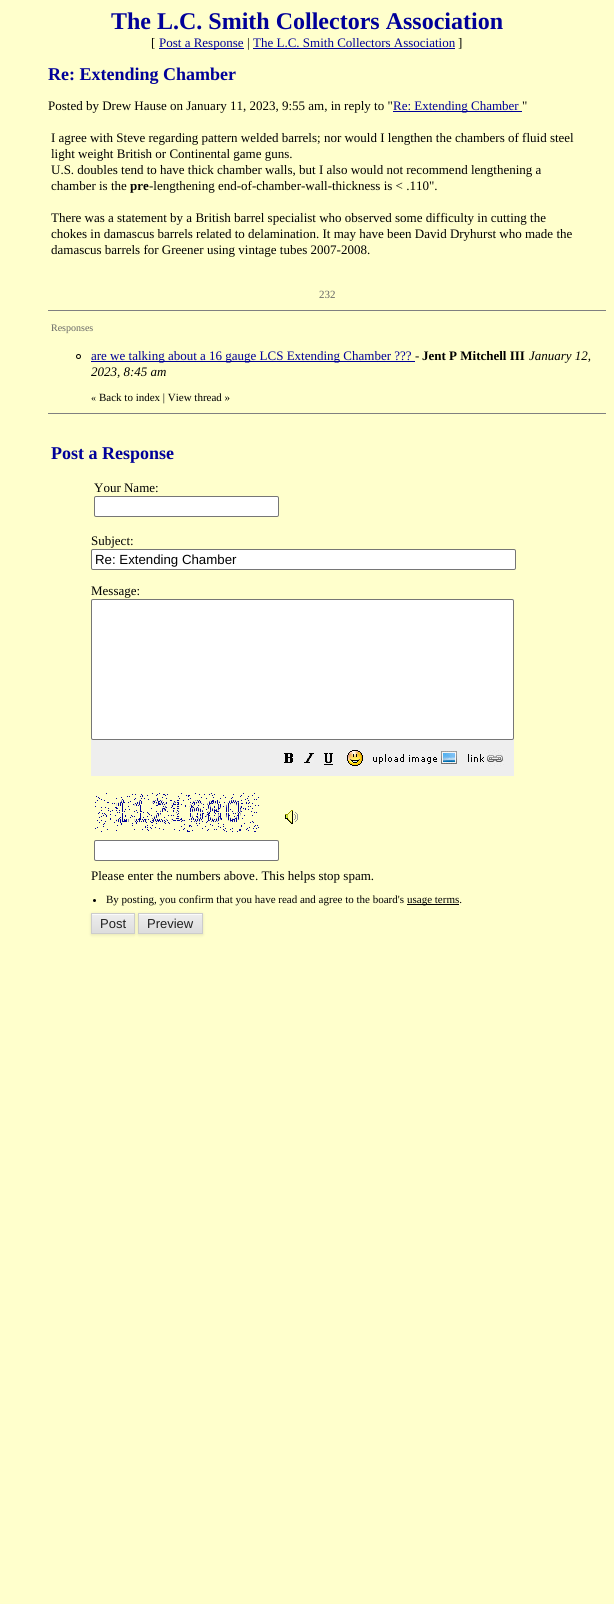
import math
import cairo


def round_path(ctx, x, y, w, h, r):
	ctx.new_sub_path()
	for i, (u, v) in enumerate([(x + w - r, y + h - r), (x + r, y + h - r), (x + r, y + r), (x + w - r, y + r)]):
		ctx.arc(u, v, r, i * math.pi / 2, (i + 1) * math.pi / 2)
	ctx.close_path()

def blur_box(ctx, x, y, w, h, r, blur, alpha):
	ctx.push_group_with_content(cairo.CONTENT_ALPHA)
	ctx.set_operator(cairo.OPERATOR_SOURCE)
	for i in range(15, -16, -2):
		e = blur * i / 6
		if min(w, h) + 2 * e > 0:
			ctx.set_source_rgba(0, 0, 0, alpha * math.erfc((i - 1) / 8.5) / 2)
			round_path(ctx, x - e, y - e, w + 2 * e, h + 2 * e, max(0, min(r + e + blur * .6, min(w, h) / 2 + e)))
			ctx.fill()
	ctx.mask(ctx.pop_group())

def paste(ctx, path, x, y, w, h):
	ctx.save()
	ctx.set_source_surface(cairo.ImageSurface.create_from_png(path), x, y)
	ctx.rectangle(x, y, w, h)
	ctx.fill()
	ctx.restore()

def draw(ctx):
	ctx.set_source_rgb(1, 1, 0.8)
	ctx.paint()
	ctx.select_font_face('Liberation Serif', cairo.FONT_SLANT_NORMAL, cairo.FONT_WEIGHT_BOLD)
	ctx.set_font_size(24)
	ctx.set_source_rgb(0, 0, 0.6)
	ctx.move_to(111, 29)
	ctx.show_text('The L.C. Smith Collectors Association')
	ctx.select_font_face('Liberation Serif')
	ctx.set_font_size(13)
	ctx.set_source_rgb(0, 0, 0)
	ctx.move_to(151, 47)
	ctx.show_text('[')
	ctx.set_source_rgb(0, 0, 0.6)
	ctx.rectangle(159, 48, 85, 1)
	ctx.fill()
	ctx.move_to(159, 47)
	ctx.show_text('Post a Response')
	ctx.set_source_rgb(0, 0, 0)
	ctx.move_to(247, 47)
	ctx.show_text('|')
	ctx.set_source_rgb(0, 0, 0.6)
	ctx.move_to(253, 47)
	ctx.show_text('The L.C. Smith Collectors Association')
	ctx.rectangle(253, 48, 202, 1)
	ctx.fill()
	ctx.set_source_rgb(0, 0, 0)
	ctx.move_to(458, 47)
	ctx.show_text(']')
	ctx.select_font_face('Liberation Serif', cairo.FONT_SLANT_NORMAL, cairo.FONT_WEIGHT_BOLD)
	ctx.set_font_size(18)
	ctx.set_source_rgb(0, 0, 0.6)
	ctx.move_to(48, 80)
	ctx.show_text('Re: Extending Chamber')
	ctx.select_font_face('Liberation Serif')
	ctx.set_font_size(13)
	ctx.set_source_rgb(0, 0, 0)
	ctx.move_to(48, 110)
	ctx.show_text('Posted by Drew Hause on January 11, 2023, 9:55 am, in reply to "')
	ctx.set_source_rgb(0, 0, 0.6)
	ctx.rectangle(393, 111, 129, 1)
	ctx.fill()
	ctx.move_to(393, 110)
	ctx.show_text('Re: Extending Chamber')
	ctx.set_source_rgb(0, 0, 0)
	for x, y, s in [
		(522, 110, '"'),
		(51, 142, 'I agree with Steve regarding pattern welded barrels; nor would I lengthen the chambers of fluid steel'),
		(51, 158, 'light weight British or Continental game guns.'),
		(51, 174, 'U.S. doubles tend to have thick chamber walls, but I also would not recommend lengthening a'),
		(51, 190, 'chamber is the'),
	]:
		ctx.move_to(x, y)
		ctx.show_text(s)
	ctx.select_font_face('Liberation Serif', cairo.FONT_SLANT_NORMAL, cairo.FONT_WEIGHT_BOLD)
	ctx.move_to(130, 190)
	ctx.show_text('pre')
	ctx.select_font_face('Liberation Serif')
	for x, y, s in [
		(149, 190, '-lengthening end-of-chamber-wall-thickness is < .110".'),
		(51, 222, 'There was a statement by a British barrel specialist who observed some difficulty in cutting the'),
		(51, 238, 'chokes in damascus barrels related to delamination. It may have been David Dryhurst who made the'),
		(51, 254, 'damascus barrels for Greener using vintage tubes 2007-2008.'),
	]:
		ctx.move_to(x, y)
		ctx.show_text(s)
	ctx.set_font_size(11)
	ctx.set_source_rgb(0.4, 0.4, 0.4)
	ctx.move_to(319, 298)
	ctx.show_text('232')
	ctx.set_source_rgb(0.502, 0.502, 0.502)
	ctx.rectangle(48, 310, 558, 1)
	ctx.fill()
	ctx.set_font_size(10)
	ctx.set_source_rgb(0.4, 0.4, 0.4)
	ctx.move_to(51, 331)
	ctx.show_text('Responses')
	ctx.new_path()
	ctx.arc(78.5, 356.5, 2, 0, 2 * math.pi)
	ctx.set_source_rgb(0, 0, 0)
	ctx.set_line_width(1)
	ctx.stroke()
	ctx.set_source_rgb(0, 0, 0.6)
	ctx.rectangle(91, 361, 324, 1)
	ctx.fill()
	ctx.set_font_size(13)
	ctx.move_to(91, 360)
	ctx.show_text('are we talking about a 16 gauge LCS Extending Chamber ???')
	ctx.set_source_rgb(0, 0, 0)
	ctx.move_to(415, 360)
	ctx.show_text('-')
	ctx.select_font_face('Liberation Serif', cairo.FONT_SLANT_NORMAL, cairo.FONT_WEIGHT_BOLD)
	ctx.move_to(422, 360)
	ctx.show_text('Jent P Mitchell III')
	ctx.select_font_face('Liberation Serif', cairo.FONT_SLANT_ITALIC)
	ctx.move_to(529, 360)
	ctx.show_text('January 12,')
	ctx.move_to(91, 376)
	ctx.show_text('2023, 8:45 am')
	ctx.select_font_face('Liberation Serif')
	ctx.set_font_size(10)
	ctx.move_to(91, 401)
	ctx.show_text('«')
	ctx.set_font_size(11)
	ctx.move_to(99, 401)
	ctx.show_text('Back to index | View thread »')
	ctx.set_source_rgb(0.502, 0.502, 0.502)
	ctx.rectangle(48, 413, 558, 1)
	ctx.fill()
	ctx.select_font_face('Liberation Serif', cairo.FONT_SLANT_NORMAL, cairo.FONT_WEIGHT_BOLD)
	ctx.set_font_size(18)
	ctx.set_source_rgb(0, 0, 0.6)
	ctx.move_to(51, 459)
	ctx.show_text('Post a Response')
	ctx.select_font_face('Liberation Serif')
	ctx.set_font_size(13)
	ctx.set_source_rgb(0, 0, 0)
	ctx.move_to(94, 492)
	ctx.show_text('Your Name:')
	ctx.set_source_rgb(1, 1, 1)
	round_path(ctx, 94.5, 496.5, 184, 20, 1.5)
	ctx.fill_preserve()
	ctx.set_source_rgb(0.463, 0.463, 0.463)
	ctx.stroke()
	ctx.set_source_rgb(0, 0, 0)
	ctx.move_to(91, 545)
	ctx.show_text('Subject:')
	ctx.set_source_rgb(1, 1, 1)
	round_path(ctx, 91.5, 549.5, 424, 20, 1.5)
	ctx.fill_preserve()
	ctx.set_source_rgb(0.463, 0.463, 0.463)
	ctx.stroke()
	ctx.select_font_face('Liberation Sans')
	ctx.set_font_size(13.25)
	ctx.set_source_rgb(0, 0, 0)
	ctx.move_to(95, 564)
	ctx.show_text('Re: Extending Chamber')
	ctx.select_font_face('Liberation Serif')
	ctx.set_font_size(13)
	ctx.move_to(91, 595)
	ctx.show_text('Message:')
	ctx.set_source_rgb(0.933, 0.933, 0.933)
	ctx.rectangle(91, 599, 423, 177)
	ctx.fill()
	ctx.set_source_rgb(1, 1, 1)
	round_path(ctx, 91.5, 599.5, 422, 140, 1.5)
	ctx.fill_preserve()
	ctx.set_source_rgb(0.463, 0.463, 0.463)
	ctx.stroke()
	paste(ctx, 'media/1.png', 284, 753, 9, 10)
	paste(ctx, 'media/2.png', 304, 753, 10, 10)
	paste(ctx, 'media/3.png', 324, 753, 9, 12)
	paste(ctx, 'media/4.png', 347, 750, 16, 16)
	paste(ctx, 'media/5.png', 373, 751, 84, 13)
	paste(ctx, 'media/6.png', 468, 750, 36, 16)
	paste(ctx, 'media/7.png', 95, 793, 164, 39)
	paste(ctx, 'media/8.png', 285, 810, 13, 14)
	ctx.set_source_rgb(1, 1, 1)
	round_path(ctx, 94.5, 840.5, 184, 20, 1.5)
	ctx.fill_preserve()
	ctx.set_source_rgb(0.463, 0.463, 0.463)
	ctx.stroke()
	ctx.set_source_rgb(0, 0, 0)
	ctx.move_to(91, 880)
	ctx.show_text('Please enter the numbers above. This helps stop spam.')
	ctx.new_path()
	ctx.arc(94.5, 900.5, 1.5, 0, 2 * math.pi)
	ctx.fill()
	ctx.set_font_size(11)
	ctx.move_to(106, 903)
	ctx.show_text('By posting, you confirm that you have read and agree to the board\'s')
	ctx.rectangle(407, 904, 52, 1)
	ctx.fill()
	ctx.move_to(407, 903)
	ctx.show_text('usage terms.')
	ctx.set_source_rgb(0, 0, 0)
	blur_box(ctx, 91, 914, 44, 21, 0, 1.5, 0.1)
	gradient = cairo.LinearGradient(113, 914, 113, 933)
	gradient.add_color_stop_rgba(0, 0.933, 0.933, 0.933, 1)
	gradient.add_color_stop_rgba(1, 0.867, 0.867, 0.867, 1)
	ctx.set_source(gradient)
	ctx.rectangle(92, 915, 42, 18)
	ctx.fill()
	ctx.set_source_rgb(0.98, 0.98, 0.98)
	ctx.rectangle(92, 914, 42, 1)
	ctx.fill()
	ctx.rectangle(91.5, 913.5, 43, 20)
	ctx.set_source_rgb(0.8, 0.8, 0.8)
	ctx.stroke()
	ctx.select_font_face('Liberation Sans')
	ctx.set_font_size(13)
	ctx.set_source_rgb(0.125, 0.125, 0.125)
	ctx.move_to(100, 928)
	ctx.show_text('Post')
	ctx.set_source_rgb(0, 0, 0)
	blur_box(ctx, 138, 914, 65, 21, 0, 1.5, 0.1)
	gradient = cairo.LinearGradient(171, 914, 171, 933)
	gradient.add_color_stop_rgba(0, 0.933, 0.933, 0.933, 1)
	gradient.add_color_stop_rgba(1, 0.867, 0.867, 0.867, 1)
	ctx.set_source(gradient)
	ctx.rectangle(139, 915, 63, 18)
	ctx.fill()
	ctx.set_source_rgb(0.98, 0.98, 0.98)
	ctx.rectangle(139, 914, 63, 1)
	ctx.fill()
	ctx.rectangle(138.5, 913.5, 64, 20)
	ctx.set_source_rgb(0.8, 0.8, 0.8)
	ctx.stroke()
	ctx.set_source_rgb(0.125, 0.125, 0.125)
	ctx.move_to(147, 928)
	ctx.show_text('Preview')


surface = cairo.ImageSurface(cairo.FORMAT_RGB24, 614, 1604)
ctx = cairo.Context(surface)
options = cairo.FontOptions()
options.set_hint_metrics(cairo.HINT_METRICS_OFF)
options.set_hint_style(cairo.HINT_STYLE_NONE)
ctx.set_font_options(options)
ctx.set_miter_limit(4)
draw(ctx)
surface.write_to_png('image.png')
